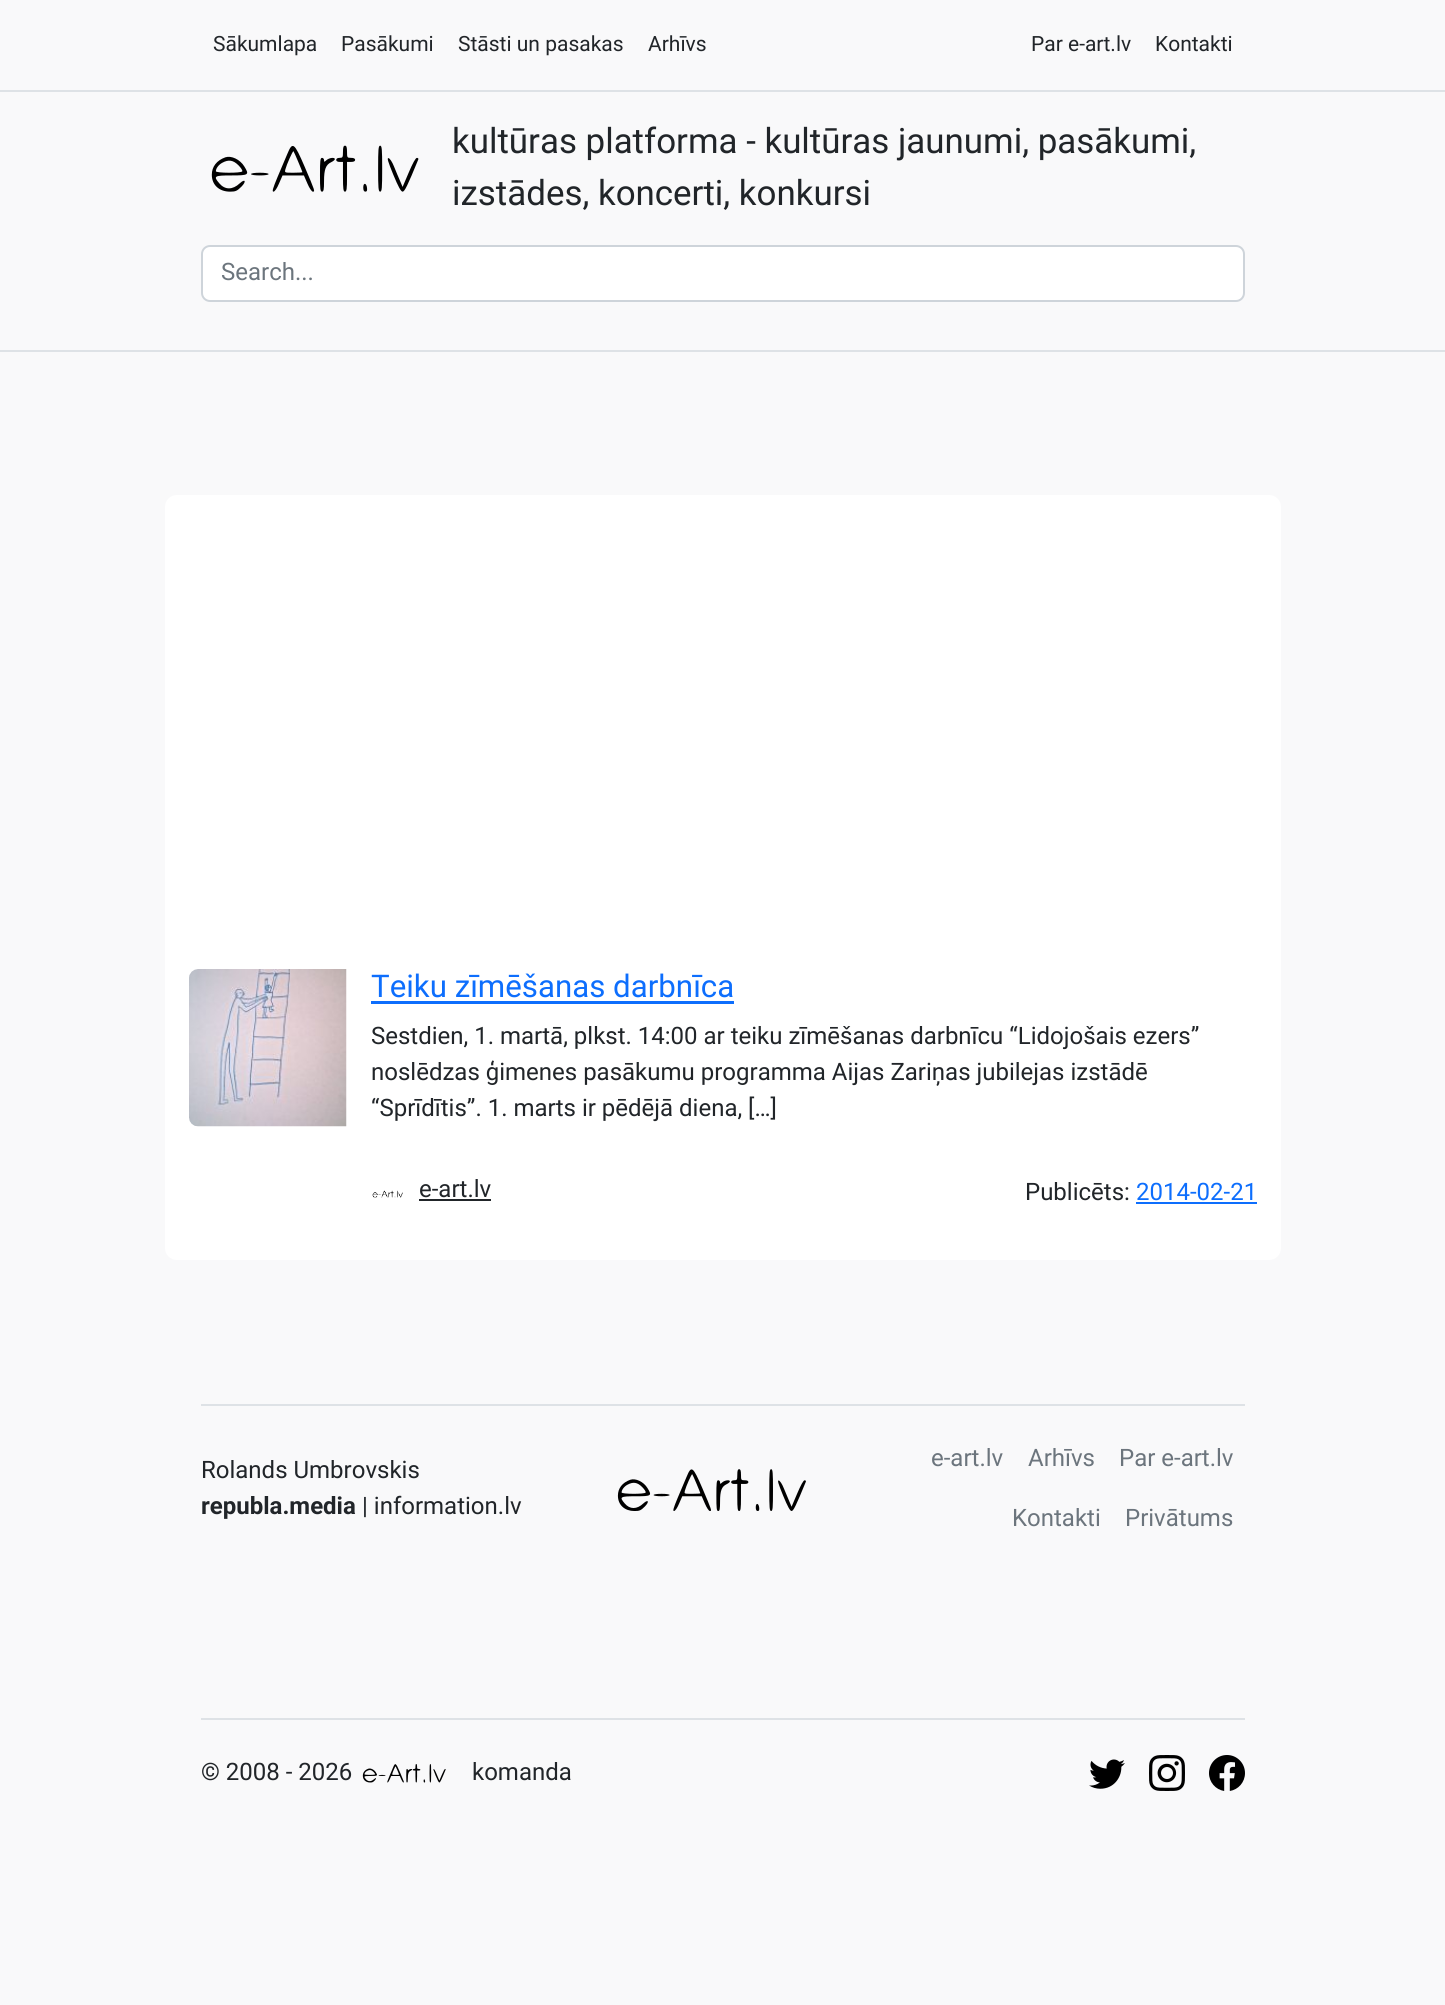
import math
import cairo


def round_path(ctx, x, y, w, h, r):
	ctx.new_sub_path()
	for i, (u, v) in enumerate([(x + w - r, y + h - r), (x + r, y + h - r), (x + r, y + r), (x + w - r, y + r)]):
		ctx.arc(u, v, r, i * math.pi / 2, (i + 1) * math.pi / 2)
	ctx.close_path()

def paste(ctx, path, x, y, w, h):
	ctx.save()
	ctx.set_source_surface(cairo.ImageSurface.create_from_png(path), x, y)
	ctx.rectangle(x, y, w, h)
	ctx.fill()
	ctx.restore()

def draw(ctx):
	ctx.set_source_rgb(0.973, 0.976, 0.98)
	ctx.paint()
	ctx.set_source_rgb(0.871, 0.886, 0.902)
	ctx.rectangle(0, 90, 1445, 2)
	ctx.fill()
	ctx.select_font_face('Roboto')
	ctx.set_font_size(21)
	ctx.set_source_rgb(0.129, 0.145, 0.161)
	for x, y, s in [
		(213, 51, 'Sākumlapa'),
		(341, 51, 'Pasākumi'),
		(458, 51, 'Stāsti un pasakas'),
		(648, 51, 'Arhīvs'),
		(1031, 51, 'Par e-art.lv'),
		(1155, 51, 'Kontakti'),
	]:
		ctx.move_to(x, y)
		ctx.show_text(s)
	ctx.set_source_rgb(0.871, 0.886, 0.902)
	ctx.rectangle(0, 350, 1445, 2)
	ctx.fill()
	paste(ctx, 'media/1.png', 211, 145, 208, 47)
	ctx.set_font_size(34.9)
	ctx.set_source_rgb(0.129, 0.145, 0.161)
	ctx.move_to(452, 153)
	ctx.show_text('kultūras platforma - kultūras jaunumi, pasākumi,')
	ctx.move_to(452, 205)
	ctx.show_text('izstādes, koncerti, konkursi')
	ctx.set_source_rgb(1, 1, 1)
	round_path(ctx, 202, 246, 1042, 55, 8)
	ctx.fill_preserve()
	ctx.set_source_rgb(0.808, 0.831, 0.855)
	ctx.stroke()
	ctx.set_font_size(24)
	ctx.set_source_rgb(0.424, 0.459, 0.49)
	ctx.move_to(221, 280)
	ctx.show_text('Search...')
	ctx.set_source_rgb(1, 1, 1)
	round_path(ctx, 165, 495, 1116, 765, 12)
	ctx.fill()
	paste(ctx, 'media/2.png', 189, 969, 158, 158)
	ctx.set_font_size(31.25)
	ctx.set_source_rgb(0.051, 0.431, 0.992)
	ctx.move_to(371, 997)
	ctx.show_text('Teiku zīmēšanas darbnīca')
	ctx.rectangle(371, 1001, 363, 3)
	ctx.fill()
	ctx.set_font_size(24)
	ctx.set_source_rgb(0.129, 0.145, 0.161)
	for x, y, s in [
		(371, 1044, 'Sestdien, 1. martā, plkst. 14:00 ar teiku zīmēšanas darbnīcu “Lidojošais ezers”'),
		(371, 1080, 'noslēdzas ģimenes pasākumu programma Aijas Zariņas jubilejas izstādē'),
		(371, 1116, '“Sprīdītis”. 1. marts ir pēdējā diena, […]'),
	]:
		ctx.move_to(x, y)
		ctx.show_text(s)
	paste(ctx, 'media/3.png', 372, 1190, 31, 8)
	ctx.move_to(419, 1197)
	ctx.show_text('e-art.lv')
	ctx.rectangle(419, 1199, 72, 2)
	ctx.fill()
	ctx.move_to(1025, 1200)
	ctx.show_text('Publicēts:')
	ctx.set_source_rgb(0.051, 0.431, 0.992)
	ctx.move_to(1136, 1200)
	ctx.show_text('2014-02-21')
	ctx.rectangle(1136, 1202, 121, 2)
	ctx.fill()
	ctx.set_source_rgb(0.871, 0.886, 0.902)
	ctx.rectangle(201, 1404, 1044, 2)
	ctx.fill()
	ctx.set_source_rgb(0.129, 0.145, 0.161)
	ctx.move_to(201, 1478)
	ctx.show_text('Rolands Umbrovskis')
	ctx.select_font_face('Roboto', cairo.FONT_SLANT_NORMAL, cairo.FONT_WEIGHT_BOLD)
	ctx.move_to(201, 1514)
	ctx.show_text('republa.media')
	ctx.select_font_face('Roboto')
	ctx.move_to(362, 1514)
	ctx.show_text('| information.lv')
	paste(ctx, 'media/4.png', 617, 1469, 189, 42)
	ctx.set_source_rgb(0.424, 0.459, 0.49)
	for x, y, s in [
		(931, 1466, 'e-art.lv'),
		(1028, 1466, 'Arhīvs'),
		(1119, 1466, 'Par e-art.lv'),
		(1012, 1526, 'Kontakti'),
		(1125, 1526, 'Privātums'),
	]:
		ctx.move_to(x, y)
		ctx.show_text(s)
	ctx.set_source_rgb(0.871, 0.886, 0.902)
	ctx.rectangle(201, 1718, 1044, 2)
	ctx.fill()
	ctx.set_source_rgb(0.129, 0.145, 0.161)
	ctx.move_to(201, 1780)
	ctx.show_text('© 2008 - 2026')
	paste(ctx, 'media/5.png', 362, 1764, 84, 19)
	ctx.move_to(472, 1780)
	ctx.show_text('komanda')
	paste(ctx, 'media/6.png', 1089, 1759, 36, 30)
	paste(ctx, 'media/7.png', 1149, 1755, 36, 36)
	paste(ctx, 'media/8.png', 1209, 1755, 36, 36)


surface = cairo.ImageSurface(cairo.FORMAT_RGB24, 1445, 2005)
ctx = cairo.Context(surface)
options = cairo.FontOptions()
options.set_hint_metrics(cairo.HINT_METRICS_OFF)
options.set_hint_style(cairo.HINT_STYLE_NONE)
ctx.set_font_options(options)
ctx.set_miter_limit(4)
draw(ctx)
surface.write_to_png('image.png')
